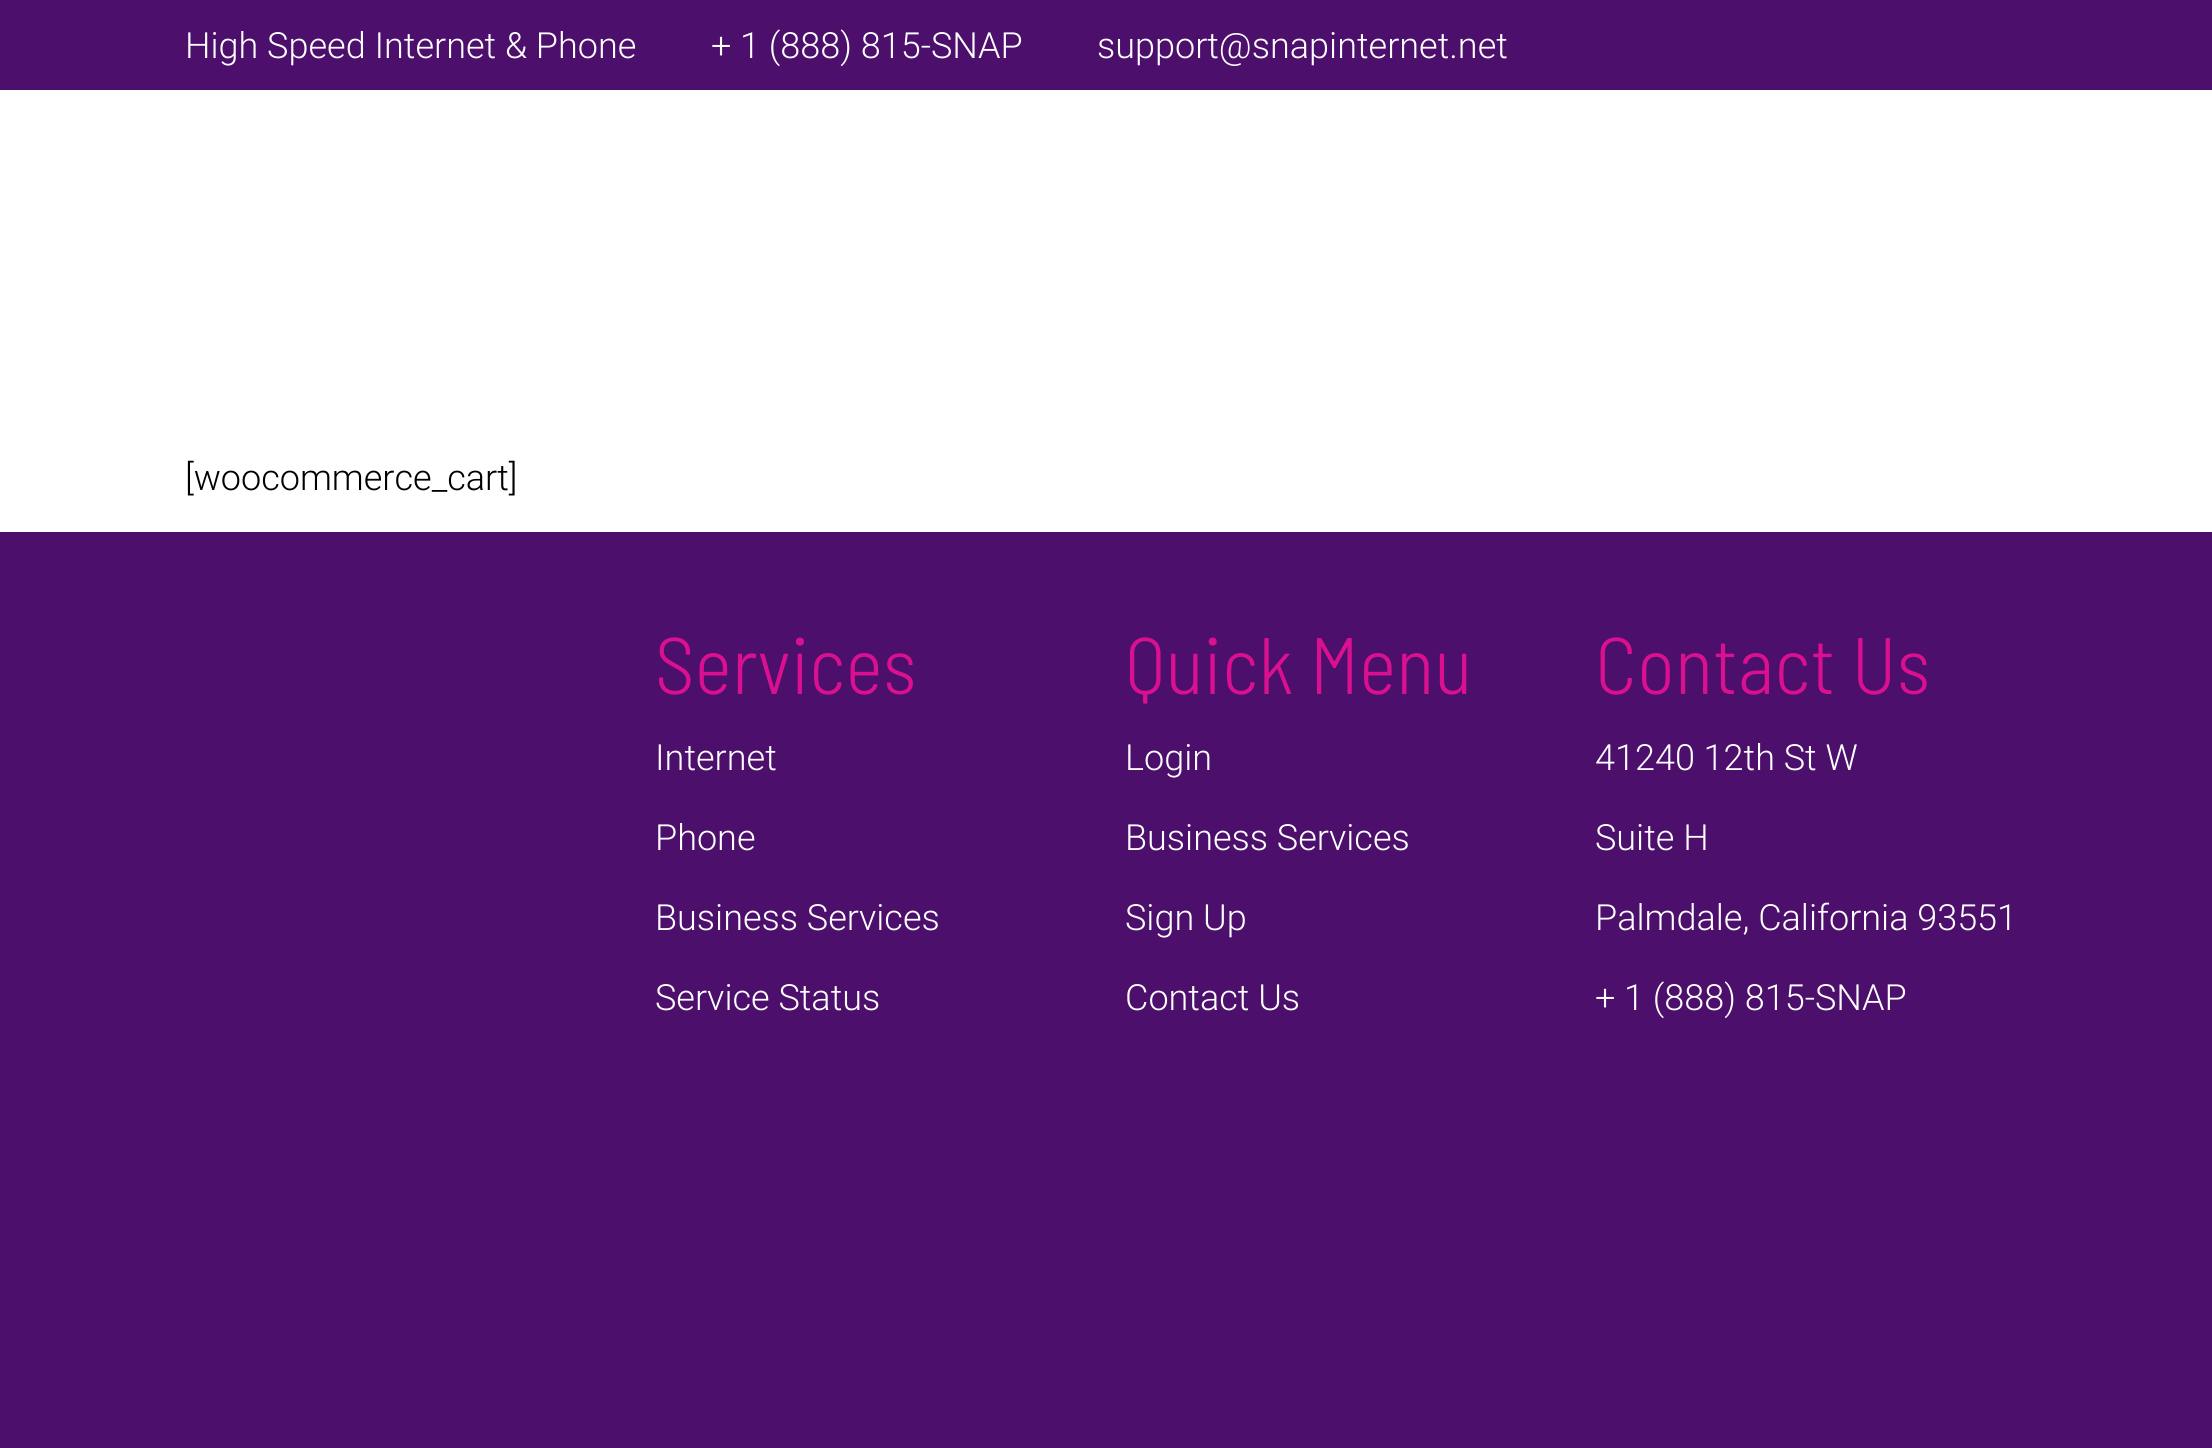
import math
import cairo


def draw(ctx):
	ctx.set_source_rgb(1, 1, 1)
	ctx.paint()
	ctx.set_source_rgb(0.302, 0.059, 0.424)
	ctx.rectangle(0, 0, 2212, 90)
	ctx.fill()
	ctx.select_font_face('Roboto Light')
	ctx.set_font_size(36)
	ctx.set_source_rgb(1, 1, 1)
	for x, y, s in [
		(185, 58, 'High Speed Internet & Phone'),
		(711, 58, '+ 1 (888) 815-SNAP'),
		(1097, 58, 'support@snapinternet.net'),
	]:
		ctx.move_to(x, y)
		ctx.show_text(s)
	ctx.set_source_rgb(0, 0, 0)
	ctx.move_to(185, 490)
	ctx.show_text('[woocommerce_cart]')
	ctx.set_source_rgb(0.302, 0.059, 0.424)
	ctx.rectangle(0, 532, 2212, 916)
	ctx.fill()
	ctx.select_font_face('Barlow Semi Condensed Light')
	ctx.set_font_size(80)
	ctx.set_source_rgb(0.859, 0.063, 0.569)
	ctx.move_to(655, 694)
	ctx.show_text('Services')
	ctx.select_font_face('Roboto Light')
	ctx.set_font_size(36)
	ctx.set_source_rgb(1, 1, 1)
	for x, y, s in [
		(655, 770, 'Internet'),
		(655, 850, 'Phone'),
		(655, 930, 'Business Services'),
		(655, 1010, 'Service Status'),
	]:
		ctx.move_to(x, y)
		ctx.show_text(s)
	ctx.select_font_face('Barlow Semi Condensed Light')
	ctx.set_font_size(80)
	ctx.set_source_rgb(0.859, 0.063, 0.569)
	ctx.move_to(1125, 694)
	ctx.show_text('Quick Menu')
	ctx.select_font_face('Roboto Light')
	ctx.set_font_size(36)
	ctx.set_source_rgb(1, 1, 1)
	for x, y, s in [
		(1125, 770, 'Login'),
		(1125, 850, 'Business Services'),
		(1125, 930, 'Sign Up'),
		(1125, 1010, 'Contact Us'),
	]:
		ctx.move_to(x, y)
		ctx.show_text(s)
	ctx.select_font_face('Barlow Semi Condensed Light')
	ctx.set_font_size(80)
	ctx.set_source_rgb(0.859, 0.063, 0.569)
	ctx.move_to(1595, 694)
	ctx.show_text('Contact Us')
	ctx.select_font_face('Roboto Light')
	ctx.set_font_size(36)
	ctx.set_source_rgb(1, 1, 1)
	for x, y, s in [
		(1595, 770, '41240 12th St W'),
		(1595, 850, 'Suite H'),
		(1595, 930, 'Palmdale, California 93551'),
		(1595, 1010, '+ 1 (888) 815-SNAP'),
	]:
		ctx.move_to(x, y)
		ctx.show_text(s)


surface = cairo.ImageSurface(cairo.FORMAT_RGB24, 2212, 1448)
ctx = cairo.Context(surface)
options = cairo.FontOptions()
options.set_hint_metrics(cairo.HINT_METRICS_OFF)
options.set_hint_style(cairo.HINT_STYLE_NONE)
ctx.set_font_options(options)
ctx.set_miter_limit(4)
draw(ctx)
surface.write_to_png('image.png')
